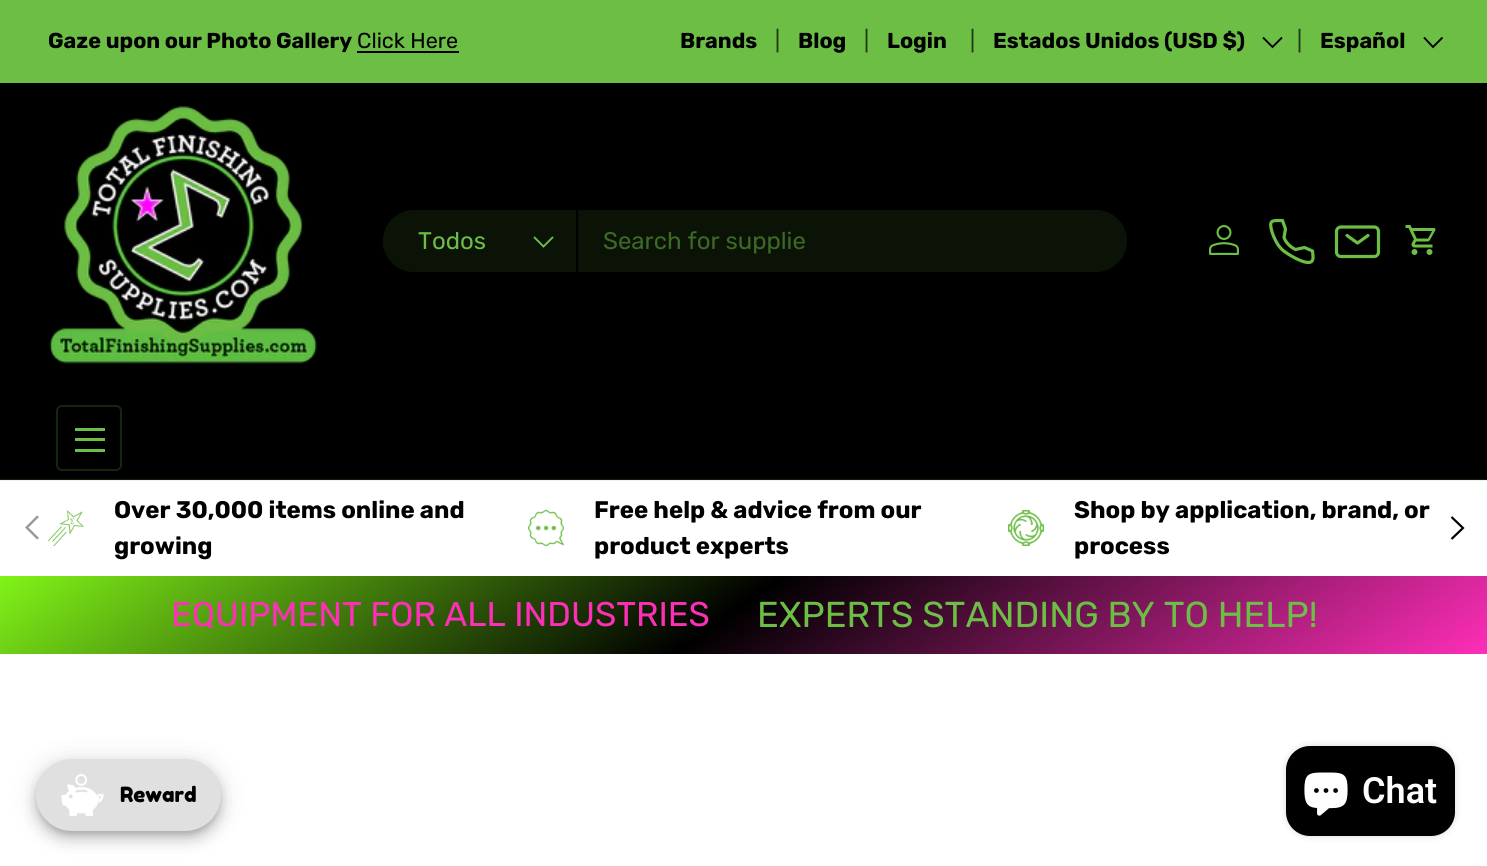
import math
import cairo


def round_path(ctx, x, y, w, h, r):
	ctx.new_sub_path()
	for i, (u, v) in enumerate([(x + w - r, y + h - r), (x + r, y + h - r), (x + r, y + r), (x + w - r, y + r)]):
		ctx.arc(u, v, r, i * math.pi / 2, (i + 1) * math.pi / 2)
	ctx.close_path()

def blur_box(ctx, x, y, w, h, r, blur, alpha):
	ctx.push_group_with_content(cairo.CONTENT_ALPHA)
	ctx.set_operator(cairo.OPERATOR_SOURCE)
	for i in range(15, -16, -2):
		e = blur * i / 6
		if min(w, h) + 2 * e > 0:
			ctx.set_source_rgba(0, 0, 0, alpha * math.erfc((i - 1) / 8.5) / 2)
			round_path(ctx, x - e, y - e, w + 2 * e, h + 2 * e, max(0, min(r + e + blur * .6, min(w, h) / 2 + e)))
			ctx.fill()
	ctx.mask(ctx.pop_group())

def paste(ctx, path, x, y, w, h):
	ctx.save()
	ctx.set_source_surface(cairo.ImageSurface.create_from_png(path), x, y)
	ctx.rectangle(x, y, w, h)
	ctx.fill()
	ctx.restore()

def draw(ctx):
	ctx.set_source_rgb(1, 1, 1)
	ctx.paint()
	ctx.set_source_rgb(0.914, 0.961, 0.89)
	ctx.rectangle(0, 480, 1487, 1)
	ctx.fill()
	ctx.set_source_rgb(0.427, 0.745, 0.271)
	ctx.rectangle(0, 0, 1487, 83)
	ctx.fill()
	ctx.select_font_face('Rubik', cairo.FONT_SLANT_NORMAL, cairo.FONT_WEIGHT_BOLD)
	ctx.set_font_size(21.6)
	ctx.set_source_rgb(0, 0, 0)
	ctx.move_to(48, 48)
	ctx.show_text('Gaze upon our Photo Gallery')
	ctx.select_font_face('Rubik')
	ctx.move_to(357, 48)
	ctx.show_text('Click Here')
	ctx.rectangle(357, 51, 102, 2)
	ctx.fill()
	ctx.select_font_face('Rubik', cairo.FONT_SLANT_NORMAL, cairo.FONT_WEIGHT_BOLD)
	ctx.move_to(680, 48)
	ctx.show_text('Brands')
	ctx.select_font_face('Rubik')
	ctx.set_source_rgb(0.129, 0.224, 0.082)
	ctx.move_to(775, 48)
	ctx.show_text('|')
	ctx.select_font_face('Rubik', cairo.FONT_SLANT_NORMAL, cairo.FONT_WEIGHT_BOLD)
	ctx.set_source_rgb(0, 0, 0)
	ctx.move_to(798, 48)
	ctx.show_text('Blog')
	ctx.select_font_face('Rubik')
	ctx.set_source_rgb(0.129, 0.224, 0.082)
	ctx.move_to(864, 48)
	ctx.show_text('|')
	ctx.select_font_face('Rubik', cairo.FONT_SLANT_NORMAL, cairo.FONT_WEIGHT_BOLD)
	ctx.set_source_rgb(0, 0, 0)
	ctx.move_to(887, 48)
	ctx.show_text('Login')
	ctx.select_font_face('Rubik')
	ctx.set_source_rgb(0.129, 0.224, 0.082)
	ctx.move_to(970, 48)
	ctx.show_text('|')
	ctx.select_font_face('Rubik', cairo.FONT_SLANT_NORMAL, cairo.FONT_WEIGHT_BOLD)
	ctx.set_source_rgb(0, 0, 0)
	ctx.move_to(993, 48)
	ctx.show_text('Estados Unidos (USD $)')
	ctx.new_path()
	ctx.move_to(1282, 37.5)
	ctx.line_to(1272.5, 47)
	ctx.line_to(1263, 37.5)
	ctx.set_line_width(1.9)
	ctx.stroke()
	ctx.select_font_face('Rubik')
	ctx.set_source_rgb(0.129, 0.224, 0.082)
	ctx.move_to(1297, 48)
	ctx.show_text('|')
	ctx.select_font_face('Rubik', cairo.FONT_SLANT_NORMAL, cairo.FONT_WEIGHT_BOLD)
	ctx.set_source_rgb(0, 0, 0)
	ctx.move_to(1320, 48)
	ctx.show_text('Español')
	ctx.new_path()
	ctx.move_to(1442.5, 37.5)
	ctx.line_to(1433, 47)
	ctx.line_to(1424, 37.5)
	ctx.stroke()
	ctx.rectangle(0, 83, 1487, 396)
	ctx.fill()
	ctx.set_source_rgb(0.063, 0.114, 0.039)
	ctx.rectangle(0, 479, 1487, 1)
	ctx.fill()
	paste(ctx, 'media/1.png', 49, 106, 268, 258)
	ctx.set_source_rgb(0.043, 0.075, 0.027)
	round_path(ctx, 383, 210, 744, 62, 31)
	ctx.fill()
	ctx.new_path()
	ctx.move_to(414, 210)
	ctx.line_to(578, 210)
	ctx.line_to(578, 272)
	ctx.line_to(414, 272)
	ctx.curve_to(397, 272, 383, 258, 383, 241)
	ctx.curve_to(383, 224, 397, 210, 414, 210)
	ctx.close_path()
	ctx.fill()
	ctx.set_source_rgb(0, 0, 0)
	ctx.rectangle(576, 210, 2, 62)
	ctx.fill()
	ctx.select_font_face('Rubik')
	ctx.set_font_size(24)
	ctx.set_source_rgb(0.427, 0.745, 0.271)
	ctx.move_to(418, 249)
	ctx.show_text('Todos')
	ctx.new_path()
	ctx.move_to(553, 237)
	ctx.line_to(543.5, 246.5)
	ctx.line_to(534, 237)
	ctx.stroke()
	ctx.set_source_rgb(0.235, 0.412, 0.149)
	ctx.move_to(603, 249)
	ctx.show_text('Search for supplie')
	paste(ctx, 'media/2.png', 1209, 225, 30, 30)
	ctx.new_path()
	ctx.move_to(1304.5, 247.5)
	ctx.line_to(1295.5, 249.5)
	ctx.curve_to(1290.5, 247, 1286, 243, 1284, 237.5)
	ctx.line_to(1285.5, 229)
	ctx.line_to(1282.5, 220.5)
	ctx.curve_to(1272, 220.5, 1268.5, 219.5, 1272, 232)
	ctx.curve_to(1274, 238, 1277, 244.5, 1282, 249.5)
	ctx.curve_to(1285.5, 253, 1307.5, 267, 1312, 261)
	ctx.curve_to(1314, 258.5, 1312.5, 253.5, 1312.5, 251)
	ctx.close_path()
	ctx.set_source_rgb(0.427, 0.745, 0.271)
	ctx.set_line_width(3.2)
	ctx.set_line_cap(cairo.LINE_CAP_ROUND)
	ctx.set_line_join(cairo.LINE_JOIN_ROUND)
	ctx.stroke()
	ctx.new_path()
	ctx.move_to(1347, 235.5)
	ctx.line_to(1357.5, 243)
	ctx.line_to(1368, 235.5)
	ctx.stroke()
	ctx.new_path()
	ctx.move_to(1336.5, 252)
	ctx.line_to(1336.5, 231.5)
	ctx.curve_to(1336.5, 229, 1338.5, 227, 1341, 227)
	ctx.line_to(1374.5, 227)
	ctx.curve_to(1376.5, 227, 1378.5, 229, 1378.5, 231.5)
	ctx.line_to(1378.5, 252)
	ctx.curve_to(1378.5, 254.5, 1376.5, 256.5, 1374.5, 256.5)
	ctx.line_to(1341, 256.5)
	ctx.curve_to(1338.5, 256.5, 1336.5, 254.5, 1336.5, 252)
	ctx.close_path()
	ctx.set_line_cap(cairo.LINE_CAP_BUTT)
	ctx.set_line_join(cairo.LINE_JOIN_MITER)
	ctx.stroke()
	paste(ctx, 'media/3.png', 1405, 225, 31, 30)
	round_path(ctx, 57, 406, 64, 64, 5)
	ctx.set_source_rgb(0.086, 0.149, 0.055)
	ctx.set_line_width(2)
	ctx.stroke()
	ctx.set_source_rgb(0.427, 0.745, 0.271)
	ctx.rectangle(75, 428, 30, 3)
	ctx.rectangle(75, 449, 30, 3)
	ctx.rectangle(75, 438, 30, 3)
	ctx.fill()
	paste(ctx, 'media/4.png', 48, 510, 36, 36)
	ctx.select_font_face('Rubik', cairo.FONT_SLANT_NORMAL, cairo.FONT_WEIGHT_BOLD)
	ctx.set_source_rgb(0, 0, 0)
	ctx.move_to(114, 518)
	ctx.show_text('Over 30,000 items online and')
	ctx.move_to(114, 554)
	ctx.show_text('growing')
	paste(ctx, 'media/5.png', 528, 510, 36, 36)
	ctx.move_to(594, 518)
	ctx.show_text('Free help & advice from our')
	ctx.move_to(594, 554)
	ctx.show_text('product experts')
	paste(ctx, 'media/6.png', 1008, 510, 36, 36)
	ctx.move_to(1074, 518)
	ctx.show_text('Shop by application, brand, or')
	ctx.move_to(1074, 554)
	ctx.show_text('process')
	ctx.set_source_rgb(0.6, 0.6, 0.6)
	ctx.new_path()
	ctx.move_to(25, 527.5)
	ctx.line_to(37, 515.5)
	ctx.line_to(39, 517)
	ctx.line_to(28.5, 527.5)
	ctx.line_to(39, 538)
	ctx.line_to(37, 539.5)
	ctx.close_path()
	ctx.fill()
	ctx.new_path()
	ctx.move_to(1451.5, 517)
	ctx.line_to(1463, 528)
	ctx.line_to(1451.5, 539)
	ctx.set_source_rgb(0, 0, 0)
	ctx.set_line_width(2.2)
	ctx.stroke()
	gradient = cairo.LinearGradient(1007, 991, 481, 239)
	gradient.add_color_stop_rgba(0, 1, 0.18, 0.722, 1)
	gradient.add_color_stop_rgba(0.51, 0, 0, 0, 1)
	gradient.add_color_stop_rgba(1, 0.506, 0.957, 0.094, 1)
	ctx.set_source(gradient)
	ctx.rectangle(0, 576, 1487, 78)
	ctx.fill()
	ctx.select_font_face('Rubik')
	ctx.set_font_size(34.25)
	ctx.set_source_rgb(1, 0.18, 0.722)
	ctx.move_to(171, 626)
	ctx.show_text('EQUIPMENT FOR ALL INDUSTRIES')
	ctx.set_font_size(36)
	ctx.set_source_rgb(0.427, 0.745, 0.271)
	ctx.move_to(757, 627)
	ctx.show_text('EXPERTS STANDING BY TO HELP!')
	ctx.set_source_rgb(0, 0, 0)
	blur_box(ctx, 36, 761, 185, 72, 36, 13.5, 0.12)
	blur_box(ctx, 36, 768, 185, 72, 36, 7.5, 0.14)
	blur_box(ctx, 38, 765, 181, 69, 34.5, 4, 0.2)
	ctx.set_source_rgb(0.878, 0.878, 0.878)
	round_path(ctx, 36, 759, 185, 72, 36)
	ctx.fill()
	paste(ctx, 'media/7.png', 61, 774, 43, 42)
	ctx.select_font_face('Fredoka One')
	ctx.set_font_size(21)
	ctx.set_source_rgb(0, 0, 0)
	ctx.move_to(120, 802)
	ctx.show_text('Reward')
	ctx.set_source_rgb(0, 0, 0)
	blur_box(ctx, 1286, 746, 169, 90, 24, 4, 0.15)
	ctx.set_source_rgb(0, 0, 0)
	round_path(ctx, 1286, 746, 169, 90, 24)
	ctx.fill()
	paste(ctx, 'media/8.png', 1304, 772, 44, 44)
	ctx.select_font_face('Roboto SemiBold')
	ctx.set_font_size(36)
	ctx.set_source_rgb(1, 1, 1)
	ctx.move_to(1362, 803)
	ctx.show_text('Chat')


surface = cairo.ImageSurface(cairo.FORMAT_RGB24, 1487, 866)
ctx = cairo.Context(surface)
options = cairo.FontOptions()
options.set_hint_metrics(cairo.HINT_METRICS_OFF)
options.set_hint_style(cairo.HINT_STYLE_NONE)
ctx.set_font_options(options)
ctx.set_miter_limit(4)
draw(ctx)
surface.write_to_png('image.png')
